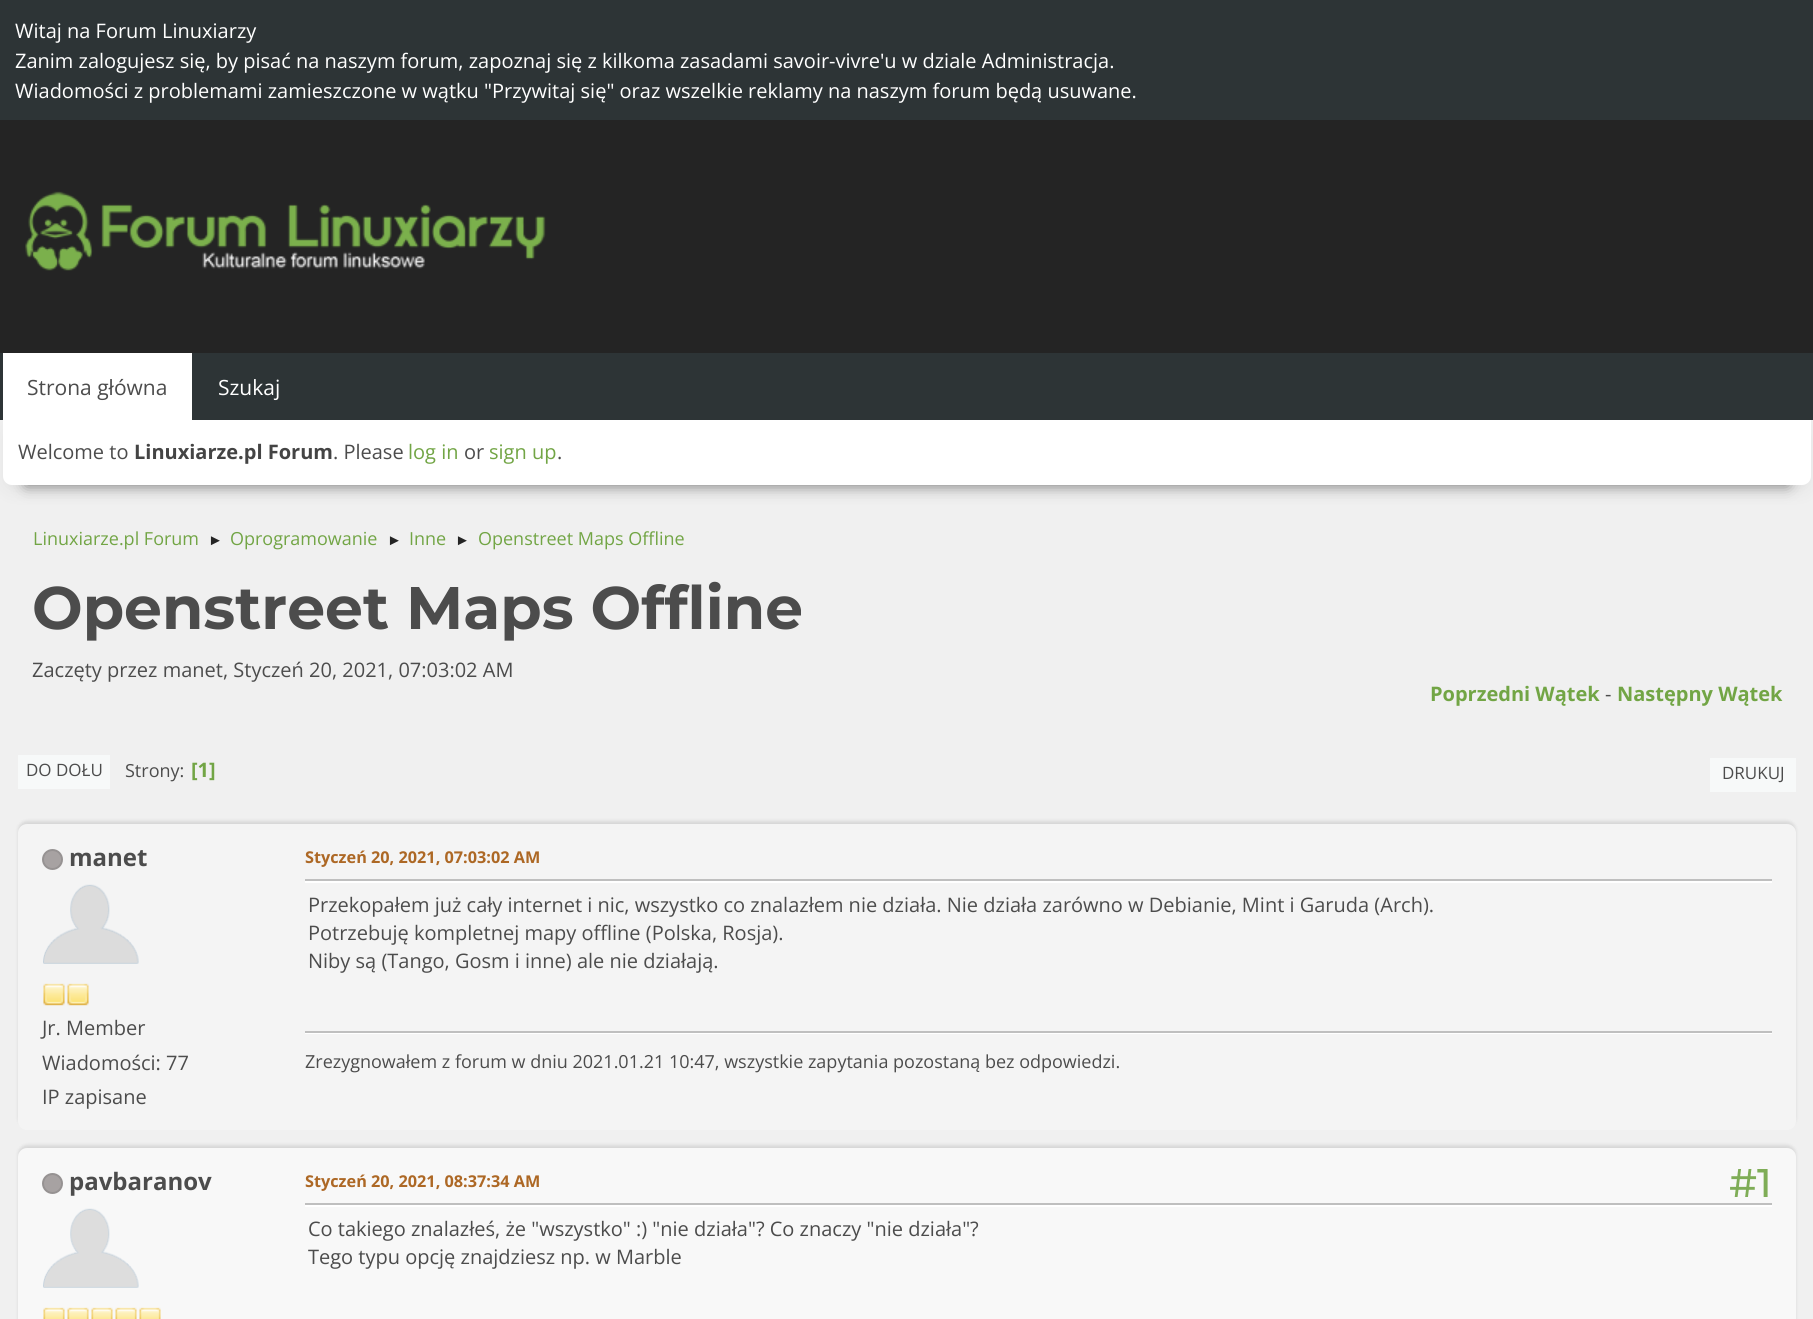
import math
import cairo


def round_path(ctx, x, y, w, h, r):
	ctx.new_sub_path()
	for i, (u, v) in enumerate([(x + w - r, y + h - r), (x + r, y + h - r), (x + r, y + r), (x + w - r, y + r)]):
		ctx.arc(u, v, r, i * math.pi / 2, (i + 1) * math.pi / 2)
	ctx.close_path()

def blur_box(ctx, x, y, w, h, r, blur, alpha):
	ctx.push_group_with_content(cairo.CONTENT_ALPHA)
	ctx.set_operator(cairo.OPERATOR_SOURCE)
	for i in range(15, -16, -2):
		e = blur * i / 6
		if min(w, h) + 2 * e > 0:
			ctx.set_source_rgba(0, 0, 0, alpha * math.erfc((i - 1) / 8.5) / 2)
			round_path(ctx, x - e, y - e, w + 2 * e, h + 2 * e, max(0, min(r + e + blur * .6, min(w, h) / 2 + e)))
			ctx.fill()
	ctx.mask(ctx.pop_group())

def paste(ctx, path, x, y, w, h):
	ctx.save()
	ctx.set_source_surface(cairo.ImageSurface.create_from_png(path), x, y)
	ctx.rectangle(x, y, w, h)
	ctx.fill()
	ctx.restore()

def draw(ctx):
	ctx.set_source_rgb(0.941, 0.941, 0.941)
	ctx.paint()
	ctx.set_source_rgb(0.176, 0.204, 0.212)
	ctx.rectangle(0, 0, 1813, 120)
	ctx.fill()
	ctx.select_font_face('Open Sans')
	ctx.set_font_size(20)
	ctx.set_source_rgb(1, 1, 1)
	for x, y, s in [
		(15, 38, 'Witaj na Forum Linuxiarzy'),
		(15, 68, 'Zanim zalogujesz się, by pisać na naszym forum, zapoznaj się z kilkoma zasadami savoir-vivre\'u w dziale Administracja.'),
		(15, 98, 'Wiadomości z problemami zamieszczone w wątku "Przywitaj się" oraz wszelkie reklamy na naszym forum będą usuwane.'),
	]:
		ctx.move_to(x, y)
		ctx.show_text(s)
	ctx.set_source_rgb(0.141, 0.141, 0.141)
	ctx.rectangle(0, 120, 1813, 233)
	ctx.fill()
	paste(ctx, 'media/1.png', 25, 191, 521, 80)
	ctx.set_source_rgb(0, 0, 0)
	blur_box(ctx, 3, 426, 1808, 65, 9, 9, 0.05)
	ctx.set_source_rgb(0.176, 0.204, 0.212)
	ctx.rectangle(0, 353, 1813, 67)
	ctx.fill()
	ctx.set_source_rgb(1, 1, 1)
	ctx.rectangle(3, 353, 189, 67)
	ctx.fill()
	ctx.set_font_size(21)
	ctx.set_source_rgb(0.298, 0.298, 0.298)
	ctx.move_to(27, 395)
	ctx.show_text('Strona główna')
	ctx.set_source_rgb(1, 1, 1)
	ctx.move_to(218, 395)
	ctx.show_text('Szukaj')
	ctx.set_source_rgb(0.004, 0, 0)
	blur_box(ctx, 26, 465, 1762, 20, 0, 7.5, 0.5)
	ctx.set_source_rgb(1, 1, 1)
	ctx.new_path()
	ctx.move_to(3, 420)
	ctx.line_to(1811, 420)
	ctx.line_to(1811, 476)
	ctx.curve_to(1811, 481, 1807, 485, 1802, 485)
	ctx.line_to(12, 485)
	ctx.curve_to(7, 485, 3, 481, 3, 476)
	ctx.close_path()
	ctx.fill()
	ctx.set_font_size(20)
	ctx.set_source_rgb(0.298, 0.298, 0.298)
	ctx.move_to(18, 459)
	ctx.show_text('Welcome to')
	ctx.select_font_face('Open Sans', cairo.FONT_SLANT_NORMAL, cairo.FONT_WEIGHT_BOLD)
	ctx.set_source_rgb(0.267, 0.267, 0.267)
	ctx.move_to(134, 459)
	ctx.show_text('Linuxiarze.pl Forum')
	ctx.select_font_face('Open Sans')
	ctx.set_source_rgb(0.298, 0.298, 0.298)
	ctx.move_to(333, 459)
	ctx.show_text('. Please')
	ctx.set_source_rgb(0.447, 0.647, 0.271)
	ctx.move_to(408, 459)
	ctx.show_text('log in')
	ctx.set_source_rgb(0.298, 0.298, 0.298)
	ctx.move_to(464, 459)
	ctx.show_text('or')
	ctx.set_source_rgb(0.447, 0.647, 0.271)
	ctx.move_to(489, 459)
	ctx.show_text('sign up')
	ctx.set_source_rgb(0.298, 0.298, 0.298)
	ctx.move_to(557, 459)
	ctx.show_text('.')
	ctx.set_font_size(18)
	ctx.set_source_rgb(0.447, 0.647, 0.271)
	ctx.move_to(33, 545)
	ctx.show_text('Linuxiarze.pl Forum')
	ctx.select_font_face('Liberation Sans')
	ctx.set_font_size(15)
	ctx.set_source_rgb(0.141, 0.141, 0.141)
	ctx.move_to(208, 545)
	ctx.show_text('►')
	ctx.select_font_face('Open Sans')
	ctx.set_font_size(18)
	ctx.set_source_rgb(0.447, 0.647, 0.271)
	ctx.move_to(230, 545)
	ctx.show_text('Oprogramowanie')
	ctx.select_font_face('Liberation Sans')
	ctx.set_font_size(15)
	ctx.set_source_rgb(0.141, 0.141, 0.141)
	ctx.move_to(387, 545)
	ctx.show_text('►')
	ctx.select_font_face('Open Sans')
	ctx.set_font_size(18)
	ctx.set_source_rgb(0.447, 0.647, 0.271)
	ctx.move_to(409, 545)
	ctx.show_text('Inne')
	ctx.select_font_face('Liberation Sans')
	ctx.set_font_size(15)
	ctx.set_source_rgb(0.141, 0.141, 0.141)
	ctx.move_to(455, 545)
	ctx.show_text('►')
	ctx.select_font_face('Open Sans')
	ctx.set_font_size(18)
	ctx.set_source_rgb(0.447, 0.647, 0.271)
	ctx.move_to(478, 545)
	ctx.show_text('Openstreet Maps Offline')
	ctx.select_font_face('Montserrat', cairo.FONT_SLANT_NORMAL, cairo.FONT_WEIGHT_BOLD)
	ctx.set_font_size(60)
	ctx.set_source_rgb(0.298, 0.298, 0.298)
	ctx.move_to(32, 629)
	ctx.show_text('Openstreet Maps Offline')
	ctx.select_font_face('Open Sans')
	ctx.set_font_size(20)
	ctx.move_to(32, 677)
	ctx.show_text('Zaczęty przez manet, Styczeń 20, 2021, 07:03:02 AM')
	ctx.select_font_face('Open Sans', cairo.FONT_SLANT_NORMAL, cairo.FONT_WEIGHT_BOLD)
	ctx.set_source_rgb(0.447, 0.647, 0.271)
	ctx.move_to(1430, 701)
	ctx.show_text('Poprzedni Wątek')
	ctx.select_font_face('Open Sans')
	ctx.set_source_rgb(0.298, 0.298, 0.298)
	ctx.move_to(1605, 701)
	ctx.show_text('-')
	ctx.select_font_face('Open Sans', cairo.FONT_SLANT_NORMAL, cairo.FONT_WEIGHT_BOLD)
	ctx.set_source_rgb(0.447, 0.647, 0.271)
	ctx.move_to(1617, 701)
	ctx.show_text('Następny Wątek')
	ctx.set_source_rgb(0.965, 0.973, 0.973)
	ctx.rectangle(18, 755, 92, 34)
	ctx.fill()
	ctx.select_font_face('Open Sans')
	ctx.set_font_size(17)
	ctx.set_source_rgb(0.298, 0.298, 0.298)
	ctx.move_to(26, 776)
	ctx.show_text('DO DOŁU')
	ctx.set_font_size(18)
	ctx.move_to(125, 777)
	ctx.show_text('Strony:')
	ctx.select_font_face('Open Sans', cairo.FONT_SLANT_NORMAL, cairo.FONT_WEIGHT_BOLD)
	ctx.set_font_size(20)
	ctx.set_source_rgb(0.447, 0.647, 0.271)
	ctx.move_to(191, 777)
	ctx.show_text('[1]')
	ctx.set_source_rgb(0.965, 0.973, 0.973)
	ctx.rectangle(1710, 758, 86, 34)
	ctx.fill()
	ctx.select_font_face('Open Sans')
	ctx.set_font_size(17)
	ctx.set_source_rgb(0.298, 0.298, 0.298)
	ctx.move_to(1722, 779)
	ctx.show_text('DRUKUJ')
	ctx.set_source_rgb(0, 0, 0)
	blur_box(ctx, 18, 821, 1778, 306, 9, 1.5, 0.1)
	ctx.set_source_rgb(0.957, 0.957, 0.957)
	round_path(ctx, 18, 824, 1778, 306, 9)
	ctx.fill()
	ctx.set_source_rgb(0.655, 0.635, 0.635)
	ctx.arc(52.5, 859.5, 9.5, 0, 2 * math.pi)
	ctx.fill_preserve()
	ctx.set_source_rgb(0.588, 0.573, 0.573)
	ctx.stroke()
	ctx.select_font_face('Open Sans', cairo.FONT_SLANT_NORMAL, cairo.FONT_WEIGHT_BOLD)
	ctx.set_font_size(24)
	ctx.set_source_rgb(0.298, 0.298, 0.298)
	ctx.move_to(69, 866)
	ctx.show_text('manet')
	paste(ctx, 'media/2.png', 43, 884, 96, 80)
	paste(ctx, 'media/3.png', 43, 983, 22, 23)
	paste(ctx, 'media/3.png', 67, 983, 22, 23)
	ctx.select_font_face('Open Sans')
	ctx.set_font_size(20)
	for x, y, s in [
		(42, 1035, 'Jr. Member'),
		(42, 1070, 'Wiadomości: 77'),
		(42, 1104, 'IP zapisane'),
	]:
		ctx.move_to(x, y)
		ctx.show_text(s)
	ctx.select_font_face('Open Sans', cairo.FONT_SLANT_NORMAL, cairo.FONT_WEIGHT_BOLD)
	ctx.set_font_size(16.25)
	ctx.set_source_rgb(0.678, 0.408, 0.145)
	ctx.move_to(305, 863)
	ctx.show_text('Styczeń 20, 2021, 07:03:02 AM')
	ctx.set_source_rgb(1, 1, 1)
	ctx.rectangle(305, 881, 1467, 2)
	ctx.fill()
	ctx.set_source_rgb(0.749, 0.749, 0.749)
	ctx.rectangle(305, 879, 1467, 2)
	ctx.fill()
	ctx.select_font_face('Open Sans')
	ctx.set_font_size(20)
	ctx.set_source_rgb(0.298, 0.298, 0.298)
	for x, y, s in [
		(308, 912, 'Przekopałem już cały internet i nic, wszystko co znalazłem nie działa. Nie działa zarówno w Debianie, Mint i Garuda (Arch).'),
		(308, 940, 'Potrzebuję kompletnej mapy offline (Polska, Rosja).'),
		(308, 968, 'Niby są (Tango, Gosm i inne) ale nie działają.'),
	]:
		ctx.move_to(x, y)
		ctx.show_text(s)
	ctx.set_source_rgb(1, 1, 1)
	ctx.rectangle(305, 1033, 1467, 1)
	ctx.fill()
	ctx.set_source_rgb(0.749, 0.749, 0.749)
	ctx.rectangle(305, 1031, 1467, 2)
	ctx.fill()
	ctx.set_font_size(18)
	ctx.set_source_rgb(0.298, 0.298, 0.298)
	ctx.move_to(305, 1068)
	ctx.show_text('Zrezygnowałem z forum w dniu 2021.01.21 10:47, wszystkie zapytania pozostaną bez odpowiedzi.')
	ctx.set_source_rgb(0, 0, 0)
	blur_box(ctx, 18, 1145, 1778, 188, 9, 1.5, 0.1)
	ctx.set_source_rgb(0.969, 0.969, 0.969)
	round_path(ctx, 18, 1148, 1778, 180, 9)
	ctx.fill()
	ctx.set_source_rgb(0.655, 0.635, 0.635)
	ctx.arc(52.5, 1183.5, 9.5, 0, 2 * math.pi)
	ctx.fill_preserve()
	ctx.set_source_rgb(0.588, 0.573, 0.573)
	ctx.stroke()
	ctx.select_font_face('Open Sans', cairo.FONT_SLANT_NORMAL, cairo.FONT_WEIGHT_BOLD)
	ctx.set_font_size(24)
	ctx.set_source_rgb(0.298, 0.298, 0.298)
	ctx.move_to(69, 1190)
	ctx.show_text('pavbaranov')
	paste(ctx, 'media/4.png', 43, 1208, 96, 80)
	paste(ctx, 'media/5.png', 43, 1307, 22, 12)
	paste(ctx, 'media/5.png', 67, 1307, 22, 12)
	paste(ctx, 'media/5.png', 91, 1307, 22, 12)
	paste(ctx, 'media/5.png', 115, 1307, 22, 12)
	paste(ctx, 'media/5.png', 139, 1307, 22, 12)
	ctx.set_font_size(16.25)
	ctx.set_source_rgb(0.678, 0.408, 0.145)
	ctx.move_to(305, 1187)
	ctx.show_text('Styczeń 20, 2021, 08:37:34 AM')
	ctx.select_font_face('Montserrat Medium')
	ctx.set_font_size(40)
	ctx.set_source_rgb(0.498, 0.678, 0.341)
	ctx.move_to(1729, 1197)
	ctx.show_text('#1')
	ctx.set_source_rgb(1, 1, 1)
	ctx.rectangle(305, 1205, 1467, 2)
	ctx.fill()
	ctx.set_source_rgb(0.749, 0.749, 0.749)
	ctx.rectangle(305, 1203, 1467, 2)
	ctx.fill()
	ctx.select_font_face('Open Sans')
	ctx.set_font_size(20)
	ctx.set_source_rgb(0.298, 0.298, 0.298)
	ctx.move_to(308, 1236)
	ctx.show_text('Co takiego znalazłeś, że "wszystko" :) "nie działa"? Co znaczy "nie działa"?')
	ctx.move_to(308, 1264)
	ctx.show_text('Tego typu opcję znajdziesz np. w Marble')


surface = cairo.ImageSurface(cairo.FORMAT_RGB24, 1813, 1319)
ctx = cairo.Context(surface)
options = cairo.FontOptions()
options.set_hint_metrics(cairo.HINT_METRICS_OFF)
options.set_hint_style(cairo.HINT_STYLE_NONE)
ctx.set_font_options(options)
ctx.set_miter_limit(4)
draw(ctx)
surface.write_to_png('image.png')
